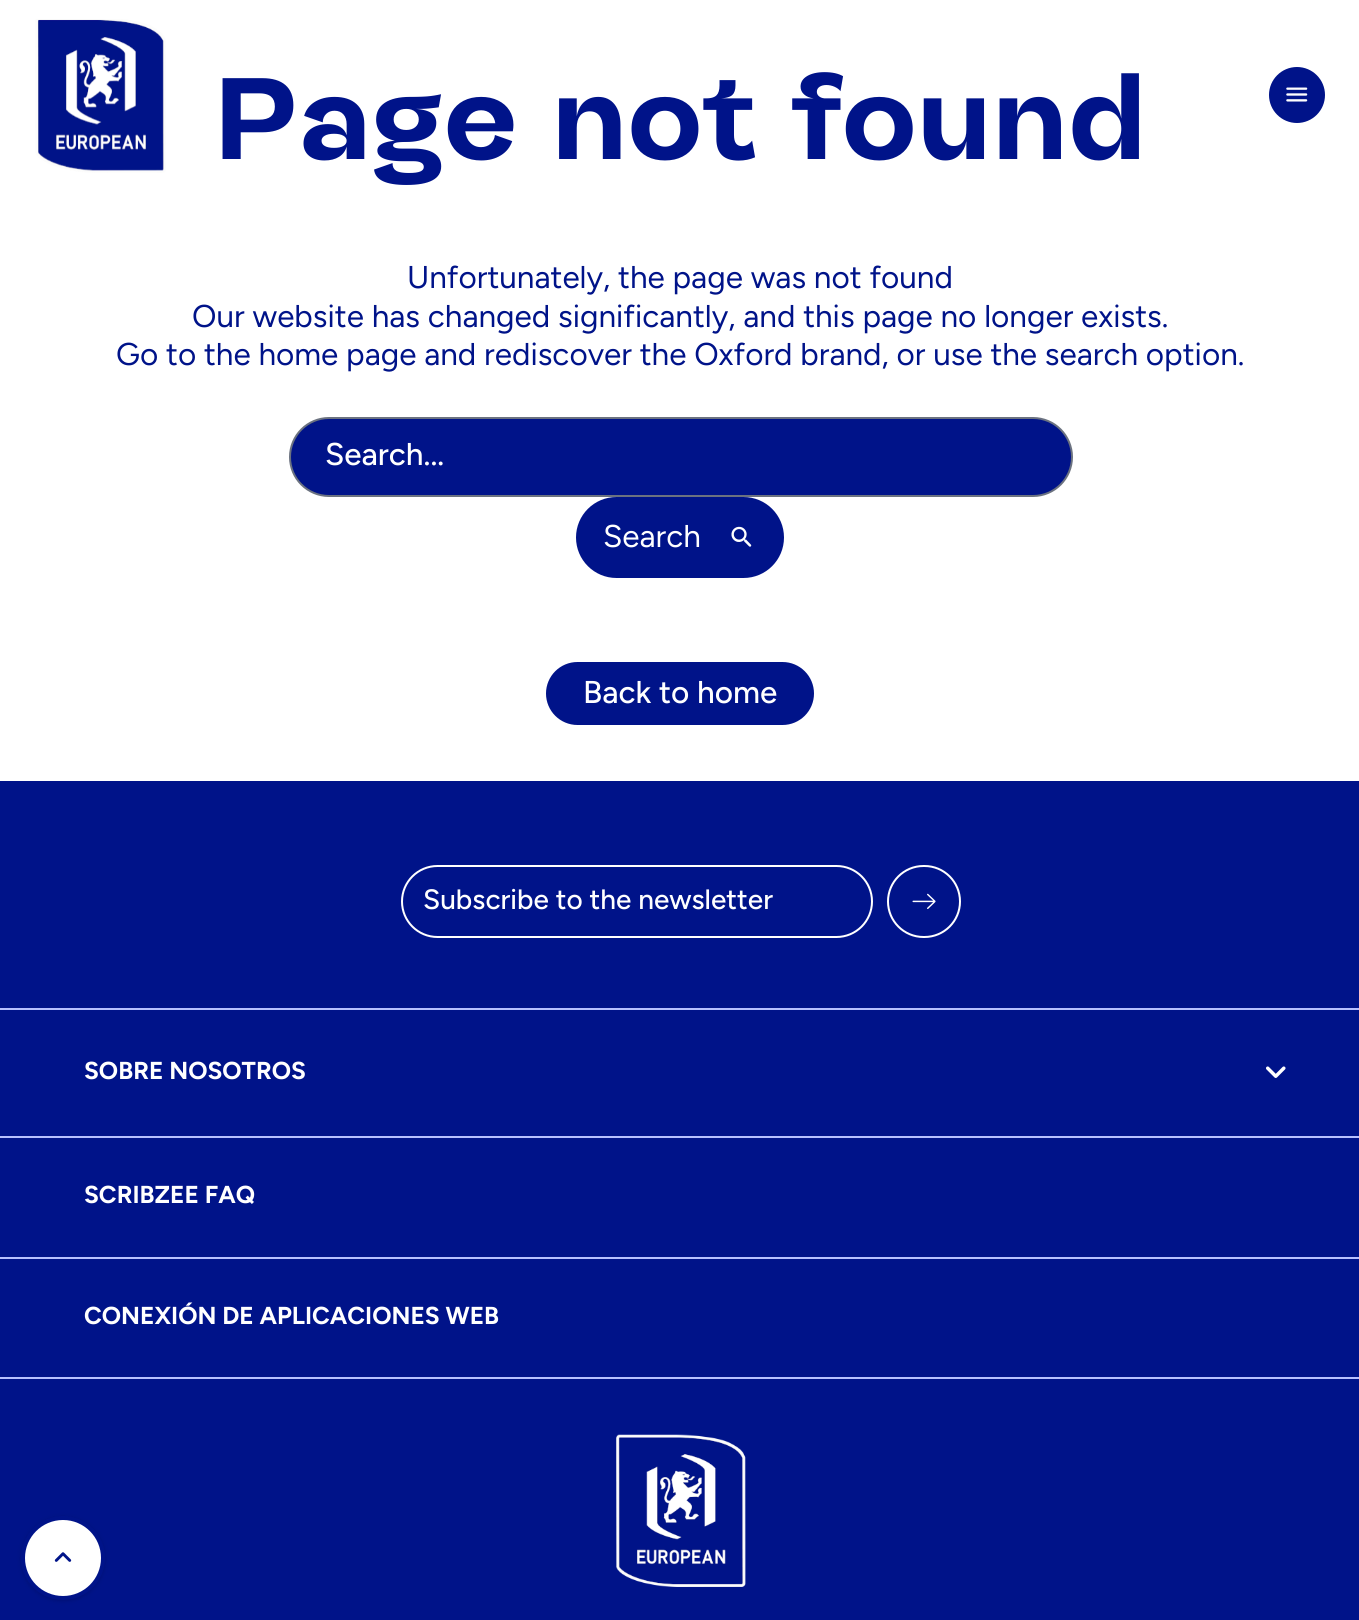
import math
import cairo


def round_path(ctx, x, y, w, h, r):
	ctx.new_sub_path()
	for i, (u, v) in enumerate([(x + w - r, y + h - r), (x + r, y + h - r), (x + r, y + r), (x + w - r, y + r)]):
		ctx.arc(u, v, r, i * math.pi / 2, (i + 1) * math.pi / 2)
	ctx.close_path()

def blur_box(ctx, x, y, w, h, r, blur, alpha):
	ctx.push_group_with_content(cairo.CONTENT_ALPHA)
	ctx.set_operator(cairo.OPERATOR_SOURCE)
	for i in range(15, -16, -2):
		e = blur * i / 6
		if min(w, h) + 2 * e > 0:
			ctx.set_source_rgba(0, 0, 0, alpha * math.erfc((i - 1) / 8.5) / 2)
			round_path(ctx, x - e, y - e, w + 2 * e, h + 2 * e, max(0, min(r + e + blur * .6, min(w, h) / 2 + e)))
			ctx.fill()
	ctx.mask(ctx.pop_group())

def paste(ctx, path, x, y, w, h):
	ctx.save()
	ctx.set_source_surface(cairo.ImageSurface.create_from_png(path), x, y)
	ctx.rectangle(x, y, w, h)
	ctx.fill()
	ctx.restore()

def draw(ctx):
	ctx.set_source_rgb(1, 1, 1)
	ctx.paint()
	paste(ctx, 'media/1.png', 35, 19, 131, 154)
	ctx.set_source_rgb(0, 0.078, 0.537)
	ctx.arc(1297, 95, 28, 0, 2 * math.pi)
	ctx.fill()
	paste(ctx, 'media/2.png', 1286, 87, 22, 15)
	ctx.select_font_face('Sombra', cairo.FONT_SLANT_NORMAL, cairo.FONT_WEIGHT_BOLD)
	ctx.set_font_size(122.5)
	ctx.move_to(213, 159)
	ctx.show_text('Page not found')
	ctx.select_font_face('Figtree')
	ctx.set_font_size(31.5)
	for x, y, s in [
		(407, 288, 'Unfortunately, the page was not found'),
		(192, 327, 'Our website has changed significantly, and this page no longer exists.'),
		(116, 365, 'Go to the home page and rediscover the Oxford brand, or use the search option.'),
	]:
		ctx.move_to(x, y)
		ctx.show_text(s)
	round_path(ctx, 290, 418, 782, 78, 39)
	ctx.fill_preserve()
	ctx.set_source_rgb(0.42, 0.447, 0.502)
	ctx.stroke()
	ctx.select_font_face('Figtree Medium')
	ctx.set_source_rgb(1, 1, 1)
	ctx.move_to(325, 465)
	ctx.show_text('Search...')
	ctx.set_source_rgb(0, 0.078, 0.537)
	round_path(ctx, 576, 497, 208, 81, 40.5)
	ctx.fill()
	ctx.select_font_face('Figtree')
	ctx.set_source_rgb(1, 1, 1)
	ctx.move_to(603, 547)
	ctx.show_text('Search')
	paste(ctx, 'media/3.png', 731, 526, 21, 21)
	ctx.set_source_rgb(0, 0.078, 0.537)
	round_path(ctx, 547, 663, 266, 61, 30.5)
	ctx.fill_preserve()
	ctx.stroke()
	ctx.select_font_face('Figtree Medium')
	ctx.set_source_rgb(1, 1, 1)
	ctx.move_to(583, 703)
	ctx.show_text('Back to home')
	ctx.set_source_rgb(0, 0.078, 0.537)
	ctx.rectangle(0, 781, 1359, 839)
	ctx.fill()
	round_path(ctx, 402, 866, 470, 71, 35.5)
	ctx.set_source_rgb(1, 1, 1)
	ctx.stroke()
	ctx.set_font_size(28)
	ctx.move_to(423, 909)
	ctx.show_text('Subscribe to the newsletter')
	round_path(ctx, 888, 866, 72, 71, 35.5)
	ctx.stroke()
	paste(ctx, 'media/4.png', 912, 893, 24, 16)
	ctx.set_source_rgb(0.714, 0.753, 1)
	ctx.rectangle(0, 1377, 1359, 2)
	ctx.fill()
	ctx.rectangle(0, 1008, 1359, 2)
	ctx.fill()
	ctx.select_font_face('Figtree', cairo.FONT_SLANT_NORMAL, cairo.FONT_WEIGHT_BOLD)
	ctx.set_font_size(24.5)
	ctx.set_source_rgb(1, 1, 1)
	ctx.move_to(84, 1079)
	ctx.show_text('SOBRE NOSOTROS')
	paste(ctx, 'media/5.png', 1266, 1066, 20, 12)
	ctx.set_source_rgb(0.714, 0.753, 1)
	ctx.rectangle(0, 1136, 1359, 2)
	ctx.fill()
	ctx.set_source_rgb(1, 1, 1)
	ctx.move_to(84, 1203)
	ctx.show_text('SCRIBZEE FAQ')
	ctx.set_source_rgb(0.714, 0.753, 1)
	ctx.rectangle(0, 1257, 1359, 2)
	ctx.fill()
	ctx.set_source_rgb(1, 1, 1)
	ctx.move_to(84, 1324)
	ctx.show_text('CONEXIÓN DE APLICACIONES WEB')
	paste(ctx, 'media/6.png', 616, 1434, 130, 153)
	ctx.set_source_rgb(0, 0, 0)
	blur_box(ctx, 23, 1519, 80, 81, 40, 2, 0.1)
	blur_box(ctx, 21, 1517, 84, 84, 42, 2.5, 0.1)
	ctx.set_source_rgb(1, 1, 1)
	ctx.arc(63, 1558, 40, 0, 2 * math.pi)
	ctx.fill_preserve()
	ctx.set_source_rgb(0, 0.078, 0.537)
	ctx.set_line_width(4)
	ctx.stroke()
	paste(ctx, 'media/7.png', 54, 1552, 18, 10)


surface = cairo.ImageSurface(cairo.FORMAT_RGB24, 1359, 1620)
ctx = cairo.Context(surface)
options = cairo.FontOptions()
options.set_hint_metrics(cairo.HINT_METRICS_OFF)
options.set_hint_style(cairo.HINT_STYLE_NONE)
ctx.set_font_options(options)
ctx.set_miter_limit(4)
draw(ctx)
surface.write_to_png('image.png')
